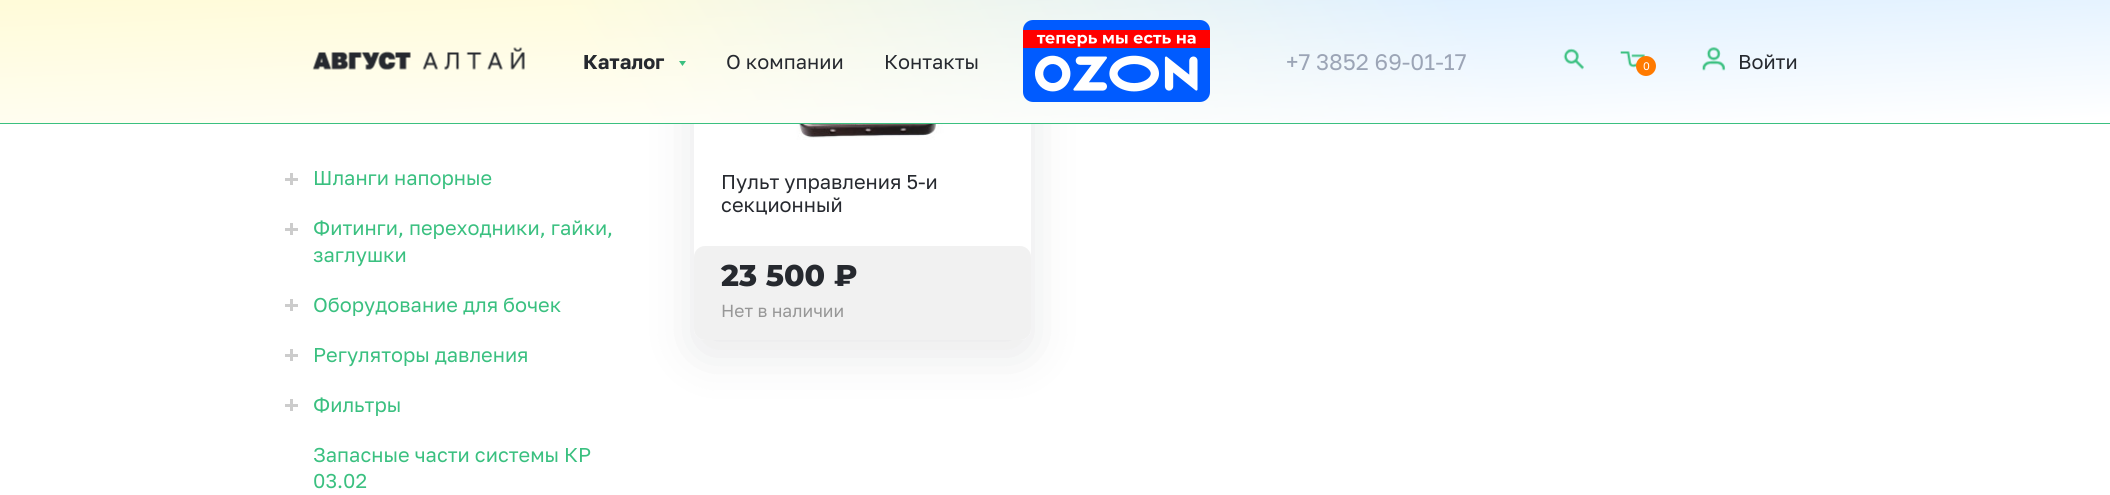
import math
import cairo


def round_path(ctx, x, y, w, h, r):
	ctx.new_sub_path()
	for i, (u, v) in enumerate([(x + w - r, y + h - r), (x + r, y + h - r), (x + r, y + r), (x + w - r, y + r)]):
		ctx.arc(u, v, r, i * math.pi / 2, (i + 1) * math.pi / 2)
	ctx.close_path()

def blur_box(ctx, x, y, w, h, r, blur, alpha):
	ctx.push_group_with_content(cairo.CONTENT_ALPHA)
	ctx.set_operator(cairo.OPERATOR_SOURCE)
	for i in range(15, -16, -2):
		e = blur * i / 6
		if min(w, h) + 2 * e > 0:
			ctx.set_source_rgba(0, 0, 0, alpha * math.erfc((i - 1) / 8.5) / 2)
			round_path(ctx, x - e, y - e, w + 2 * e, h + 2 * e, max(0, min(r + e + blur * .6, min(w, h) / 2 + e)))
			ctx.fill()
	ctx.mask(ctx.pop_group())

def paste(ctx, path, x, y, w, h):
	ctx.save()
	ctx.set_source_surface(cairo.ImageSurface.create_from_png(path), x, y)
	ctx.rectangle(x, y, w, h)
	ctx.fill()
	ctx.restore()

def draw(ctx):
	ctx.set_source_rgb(1, 1, 1)
	ctx.paint()
	ctx.set_source_rgb(0.149, 0.161, 0.184)
	blur_box(ctx, 694, -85, 337, 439, 11, 24.5, 0.11)
	ctx.set_source_rgb(1, 1, 1)
	round_path(ctx, 694, -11, 337, 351, 11)
	ctx.fill()
	gradient = cairo.LinearGradient(1848, -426, 262, 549)
	gradient.add_color_stop_rgba(0.3, 0.835, 0.922, 1, 1)
	gradient.add_color_stop_rgba(0.71, 1, 0.984, 0.851, 1)
	ctx.set_source(gradient)
	ctx.rectangle(0, 0, 2110, 123)
	ctx.fill()
	gradient = cairo.LinearGradient(1051, -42, 1059, 164)
	gradient.add_color_stop_rgba(0.02, 1, 1, 1, 0)
	gradient.add_color_stop_rgba(0.02, 1, 1, 1, 0)
	gradient.add_color_stop_rgba(0.98, 1, 1, 1, 1)
	ctx.set_source(gradient)
	ctx.rectangle(0, 0, 2110, 123)
	ctx.fill()
	ctx.set_source_rgb(0.227, 0.753, 0.502)
	ctx.rectangle(0, 123, 2110, 1)
	ctx.fill()
	paste(ctx, 'media/1.png', 312, 47, 213, 23)
	ctx.select_font_face('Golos', cairo.FONT_SLANT_NORMAL, cairo.FONT_WEIGHT_BOLD)
	ctx.set_font_size(20)
	ctx.set_source_rgb(0.149, 0.161, 0.184)
	ctx.move_to(583, 69)
	ctx.show_text('Каталог')
	ctx.set_source_rgb(0.227, 0.753, 0.502)
	ctx.new_path()
	ctx.move_to(682.5, 66)
	ctx.line_to(679, 61)
	ctx.line_to(686, 61)
	ctx.close_path()
	ctx.fill()
	ctx.select_font_face('Golos')
	ctx.set_source_rgb(0.149, 0.161, 0.184)
	ctx.move_to(726, 69)
	ctx.show_text('О компании')
	ctx.move_to(884, 69)
	ctx.show_text('Контакты')
	paste(ctx, 'media/2.png', 1023, 20, 187, 82)
	ctx.set_font_size(22.5)
	ctx.set_source_rgb(0.612, 0.647, 0.714)
	ctx.move_to(1286, 70)
	ctx.show_text('+7 3852 69-01-17')
	paste(ctx, 'media/3.png', 1563, 48, 21, 22)
	paste(ctx, 'media/4.png', 1620, 51, 25, 17)
	ctx.set_source_rgb(1, 0.478, 0)
	ctx.arc(1646, 66, 10, 0, 2 * math.pi)
	ctx.fill()
	ctx.set_font_size(11)
	ctx.set_source_rgb(1, 1, 1)
	ctx.move_to(1643, 70)
	ctx.show_text('0')
	paste(ctx, 'media/5.png', 1702, 47, 24, 24)
	ctx.set_font_size(20)
	ctx.set_source_rgb(0.149, 0.161, 0.184)
	ctx.move_to(1738, 69)
	ctx.show_text('Войти')
	ctx.set_source_rgb(0.8, 0.8, 0.8)
	ctx.rectangle(285, 178, 13, 3)
	ctx.fill()
	ctx.rectangle(290, 173, 3, 12)
	ctx.fill()
	ctx.set_source_rgb(0.227, 0.753, 0.502)
	ctx.move_to(313, 185)
	ctx.show_text('Шланги напорные')
	ctx.set_source_rgb(0.8, 0.8, 0.8)
	ctx.rectangle(285, 228, 13, 3)
	ctx.fill()
	ctx.rectangle(290, 223, 3, 12)
	ctx.fill()
	ctx.set_source_rgb(0.227, 0.753, 0.502)
	ctx.move_to(313, 235)
	ctx.show_text('Фитинги, переходники, гайки,')
	ctx.move_to(313, 262)
	ctx.show_text('заглушки')
	ctx.set_source_rgb(0.8, 0.8, 0.8)
	ctx.rectangle(285, 304, 13, 3)
	ctx.fill()
	ctx.rectangle(290, 299, 3, 12)
	ctx.fill()
	ctx.set_source_rgb(0.227, 0.753, 0.502)
	ctx.move_to(313, 312)
	ctx.show_text('Оборудование для бочек')
	ctx.set_source_rgb(0.8, 0.8, 0.8)
	ctx.rectangle(285, 354, 13, 3)
	ctx.fill()
	ctx.rectangle(290, 349, 3, 12)
	ctx.fill()
	ctx.set_source_rgb(0.227, 0.753, 0.502)
	ctx.move_to(313, 362)
	ctx.show_text('Регуляторы давления')
	ctx.set_source_rgb(0.8, 0.8, 0.8)
	ctx.rectangle(285, 404, 13, 3)
	ctx.fill()
	ctx.rectangle(290, 399, 3, 12)
	ctx.fill()
	ctx.set_source_rgb(0.227, 0.753, 0.502)
	for x, y, s in [
		(313, 412, 'Фильтры'),
		(313, 462, 'Запасные части системы КР'),
		(313, 488, '03.02'),
	]:
		ctx.move_to(x, y)
		ctx.show_text(s)
	paste(ctx, 'media/6.png', 781, 124, 163, 16)
	ctx.set_source_rgb(0.149, 0.161, 0.184)
	ctx.move_to(721, 189)
	ctx.show_text('Пульт управления 5-и')
	ctx.move_to(721, 212)
	ctx.show_text('секционный')
	ctx.set_source_rgb(0.945, 0.945, 0.945)
	round_path(ctx, 694, 246, 337, 94, 11)
	ctx.fill()
	ctx.select_font_face('Montserrat ExtraBold')
	ctx.set_font_size(30)
	ctx.set_source_rgb(0.149, 0.161, 0.184)
	ctx.move_to(721, 286)
	ctx.show_text('23 500 ₽')
	ctx.select_font_face('Golos')
	ctx.set_font_size(17.5)
	ctx.set_source_rgb(0.592, 0.592, 0.592)
	ctx.move_to(721, 317)
	ctx.show_text('Нет в наличии')


surface = cairo.ImageSurface(cairo.FORMAT_RGB24, 2110, 495)
ctx = cairo.Context(surface)
options = cairo.FontOptions()
options.set_hint_metrics(cairo.HINT_METRICS_OFF)
options.set_hint_style(cairo.HINT_STYLE_NONE)
ctx.set_font_options(options)
ctx.set_miter_limit(4)
draw(ctx)
surface.write_to_png('image.png')
